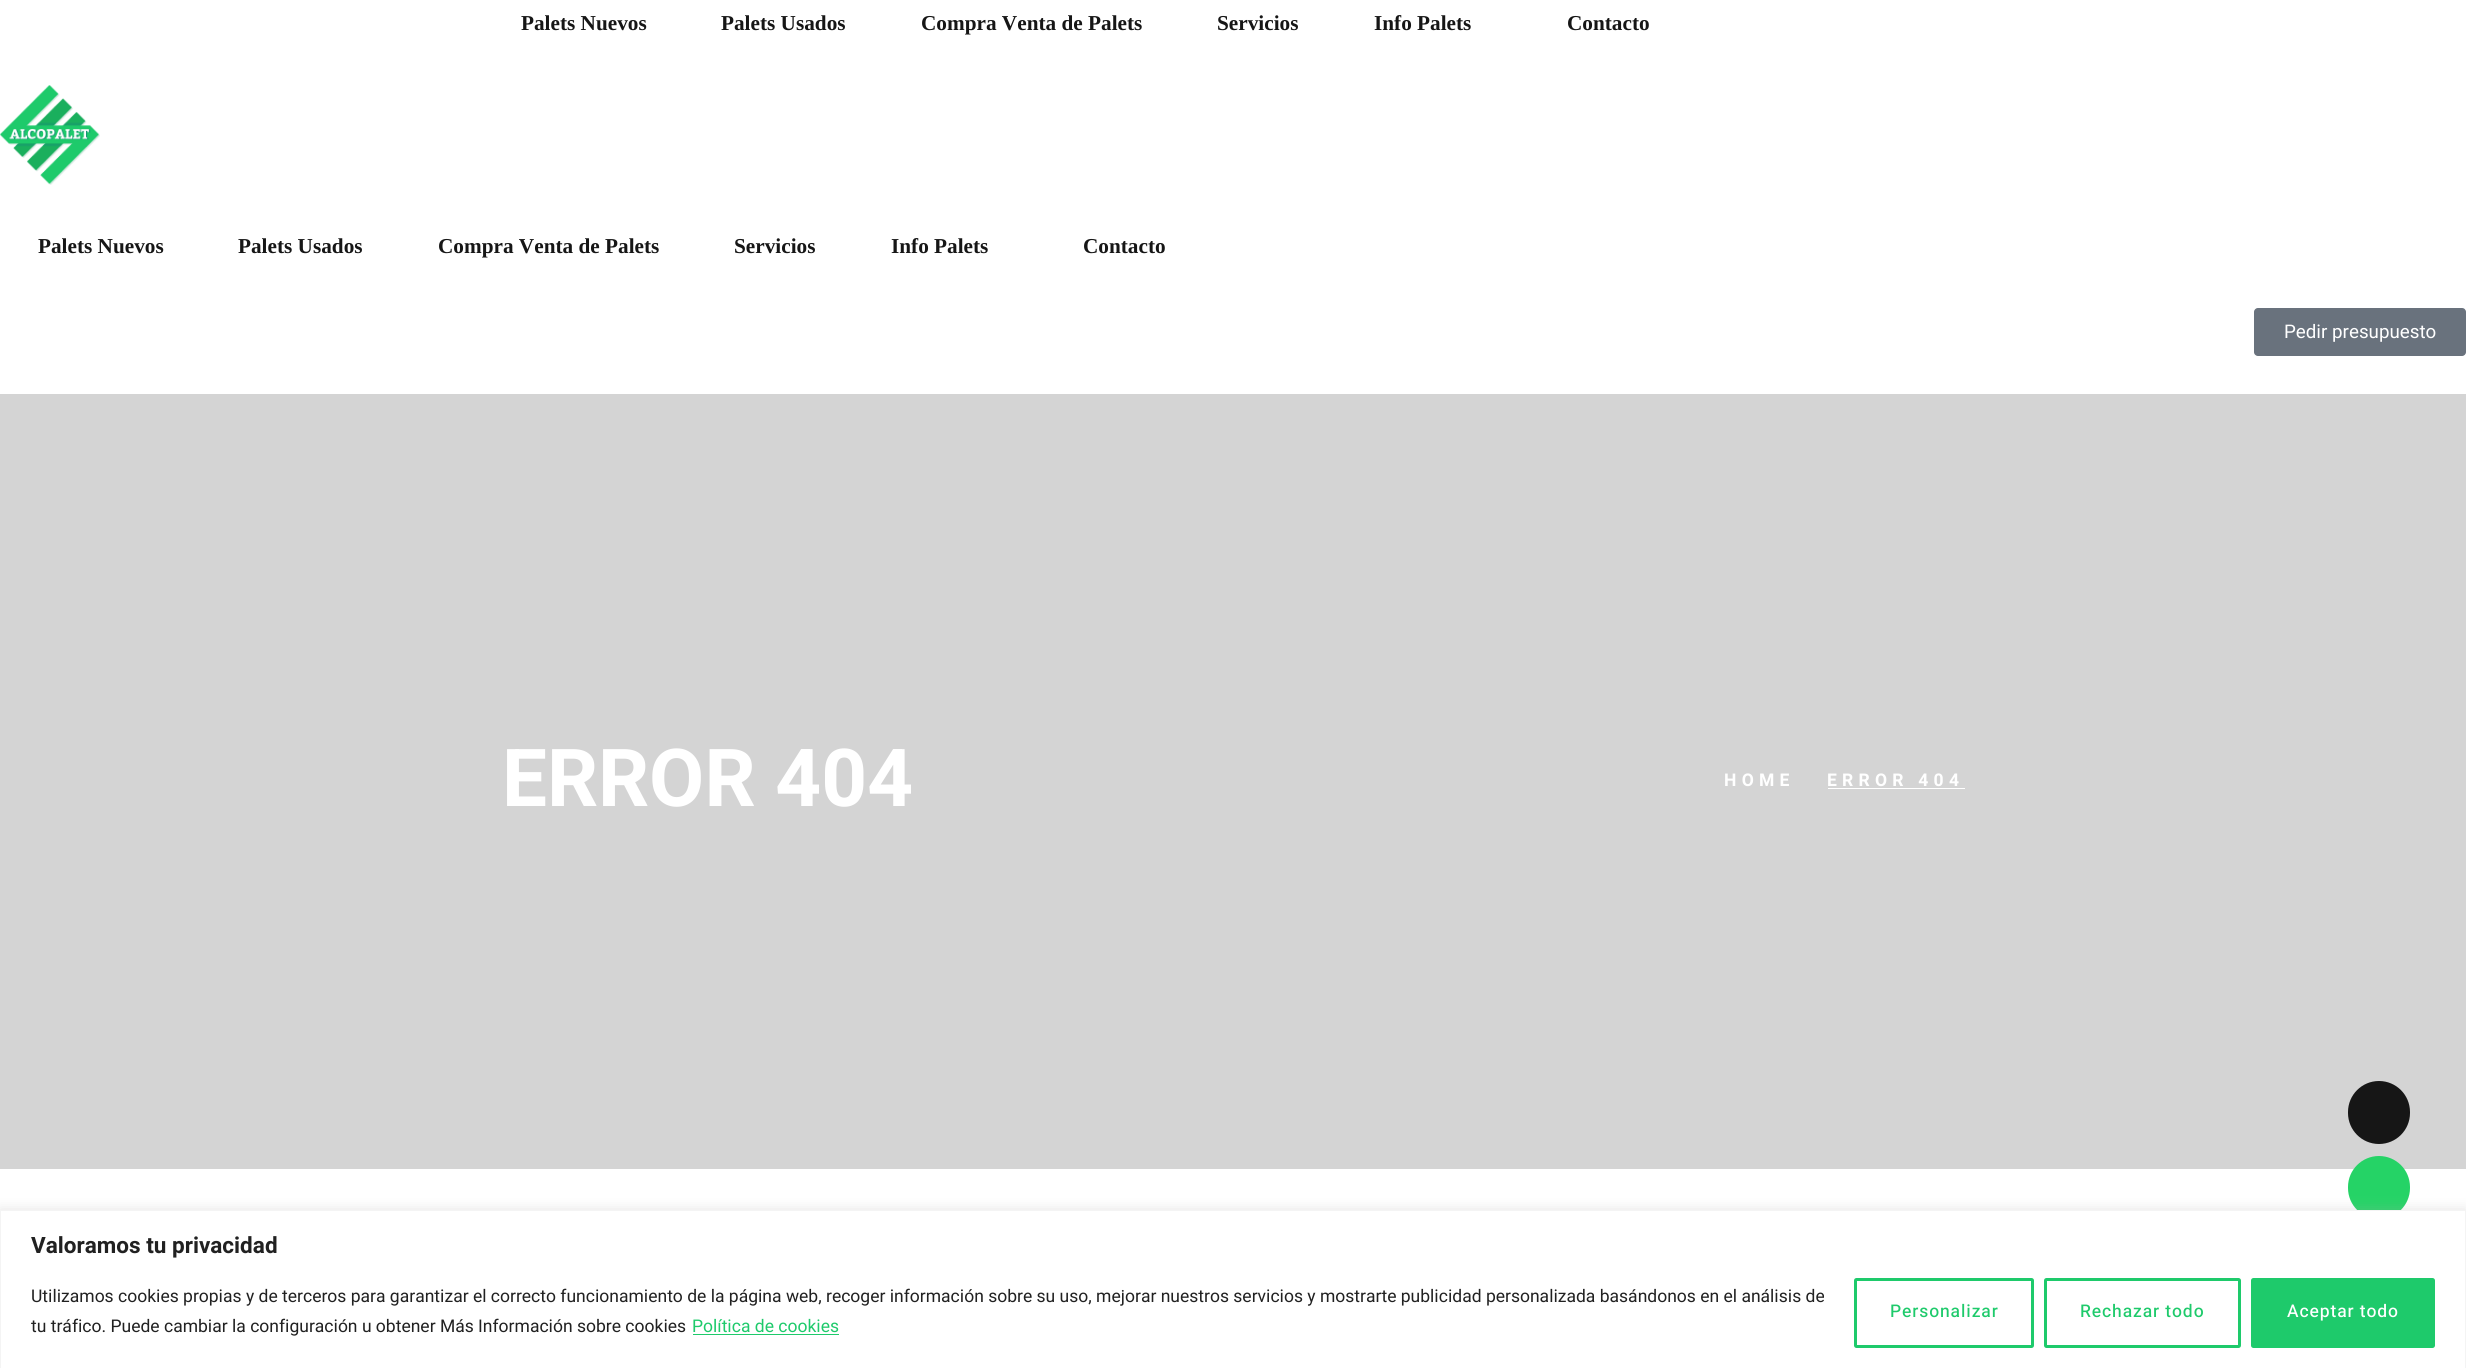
import math
import cairo


def write_spaced(ctx, x, y, s, letter, word):
	ctx.move_to(x, y)
	for ch in s:
		ctx.show_text(ch)
		ctx.rel_move_to(letter + word * (ch == ' '), 0)

def round_path(ctx, x, y, w, h, r):
	ctx.new_sub_path()
	for i, (u, v) in enumerate([(x + w - r, y + h - r), (x + r, y + h - r), (x + r, y + r), (x + w - r, y + r)]):
		ctx.arc(u, v, r, i * math.pi / 2, (i + 1) * math.pi / 2)
	ctx.close_path()

def blur_box(ctx, x, y, w, h, r, blur, alpha):
	ctx.push_group_with_content(cairo.CONTENT_ALPHA)
	ctx.set_operator(cairo.OPERATOR_SOURCE)
	for i in range(15, -16, -2):
		e = blur * i / 6
		if min(w, h) + 2 * e > 0:
			ctx.set_source_rgba(0, 0, 0, alpha * math.erfc((i - 1) / 8.5) / 2)
			round_path(ctx, x - e, y - e, w + 2 * e, h + 2 * e, max(0, min(r + e + blur * .6, min(w, h) / 2 + e)))
			ctx.fill()
	ctx.mask(ctx.pop_group())

def paste(ctx, path, x, y, w, h):
	ctx.save()
	ctx.set_source_surface(cairo.ImageSurface.create_from_png(path), x, y)
	ctx.rectangle(x, y, w, h)
	ctx.fill()
	ctx.restore()

def draw(ctx):
	ctx.set_source_rgb(1, 1, 1)
	ctx.paint()
	ctx.select_font_face('Liberation Serif', cairo.FONT_SLANT_NORMAL, cairo.FONT_WEIGHT_BOLD)
	ctx.set_font_size(21.25)
	ctx.set_source_rgb(0.086, 0.086, 0.086)
	for x, y, s in [
		(521, 30, 'Palets Nuevos'),
		(721, 30, 'Palets Usados'),
		(921, 30, 'Compra Venta de Palets'),
		(1217, 30, 'Servicios'),
		(1374, 30, 'Info Palets'),
		(1567, 30, 'Contacto'),
	]:
		ctx.move_to(x, y)
		ctx.show_text(s)
	paste(ctx, 'media/1.png', 0, 85, 100, 100)
	for x, y, s in [
		(38, 253, 'Palets Nuevos'),
		(238, 253, 'Palets Usados'),
		(438, 253, 'Compra Venta de Palets'),
		(734, 253, 'Servicios'),
		(891, 253, 'Info Palets'),
		(1083, 253, 'Contacto'),
	]:
		ctx.move_to(x, y)
		ctx.show_text(s)
	ctx.set_source_rgb(0.412, 0.447, 0.49)
	round_path(ctx, 2254, 308, 212, 48, 4)
	ctx.fill()
	ctx.select_font_face('Heebo')
	ctx.set_font_size(18.75)
	ctx.set_source_rgb(1, 1, 1)
	ctx.move_to(2284, 338)
	ctx.show_text('Pedir presupuesto')
	ctx.set_source_rgb(0.831, 0.831, 0.831)
	ctx.rectangle(0, 394, 2466, 775)
	ctx.fill()
	ctx.select_font_face('Heebo', cairo.FONT_SLANT_NORMAL, cairo.FONT_WEIGHT_BOLD)
	ctx.set_font_size(80)
	ctx.set_source_rgb(1, 1, 1)
	ctx.move_to(502, 806)
	ctx.show_text('ERROR 404')
	ctx.set_font_size(17.5)
	write_spaced(ctx, 1724, 786, 'HOME', 5.25, 0)
	write_spaced(ctx, 1827, 786, 'ERROR 404', 5.25, 0)
	ctx.rectangle(1828, 788, 137, 1)
	ctx.fill()
	ctx.set_source_rgb(0.086, 0.086, 0.086)
	round_path(ctx, 2348, 1081, 62, 63, 31)
	ctx.fill()
	ctx.set_source_rgb(0.145, 0.827, 0.4)
	round_path(ctx, 2348, 1156, 62, 63, 31)
	ctx.fill()
	ctx.set_source_rgb(0.675, 0.671, 0.671)
	blur_box(ctx, 0, 1209, 2466, 159, 0, 6, 0.3)
	ctx.set_source_rgb(1, 1, 1)
	ctx.rectangle(0.5, 1210.5, 2465, 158)
	ctx.fill_preserve()
	ctx.set_source_rgb(0.957, 0.957, 0.957)
	ctx.set_line_width(1)
	ctx.stroke()
	ctx.set_font_size(22.5)
	ctx.set_source_rgb(0.129, 0.129, 0.129)
	ctx.move_to(31, 1253)
	ctx.show_text('Valoramos tu privacidad')
	ctx.select_font_face('Heebo')
	ctx.set_font_size(17.5)
	ctx.move_to(31, 1302)
	ctx.show_text('Utilizamos cookies propias y de terceros para garantizar el correcto funcionamiento de la página web, recoger información sobre su uso, mejorar nuestros servicios y mostrarte publicidad personalizada basándonos en el análisis de')
	ctx.move_to(31, 1332)
	ctx.show_text('tu tráfico. Puede cambiar la configuración u obtener Más Información sobre cookies')
	ctx.set_source_rgb(0.118, 0.792, 0.42)
	ctx.move_to(692, 1332)
	ctx.show_text('Política de cookies')
	ctx.rectangle(693, 1334, 146, 1)
	ctx.fill()
	round_path(ctx, 1855.5, 1279.5, 177, 67, 1)
	ctx.set_line_width(3)
	ctx.stroke()
	ctx.select_font_face('Heebo Medium')
	write_spaced(ctx, 1890, 1317, 'Personalizar', 0.9, 0)
	round_path(ctx, 2045.5, 1279.5, 194, 67, 1)
	ctx.stroke()
	write_spaced(ctx, 2080, 1317, 'Rechazar todo', 0.9, 0)
	round_path(ctx, 2252.5, 1279.5, 181, 67, 1)
	ctx.fill_preserve()
	ctx.stroke()
	ctx.set_source_rgb(1, 1, 1)
	write_spaced(ctx, 2287, 1317, 'Aceptar todo', 0.9, 0)


surface = cairo.ImageSurface(cairo.FORMAT_RGB24, 2466, 1368)
ctx = cairo.Context(surface)
options = cairo.FontOptions()
options.set_hint_metrics(cairo.HINT_METRICS_OFF)
options.set_hint_style(cairo.HINT_STYLE_NONE)
ctx.set_font_options(options)
ctx.set_miter_limit(4)
draw(ctx)
surface.write_to_png('image.png')
